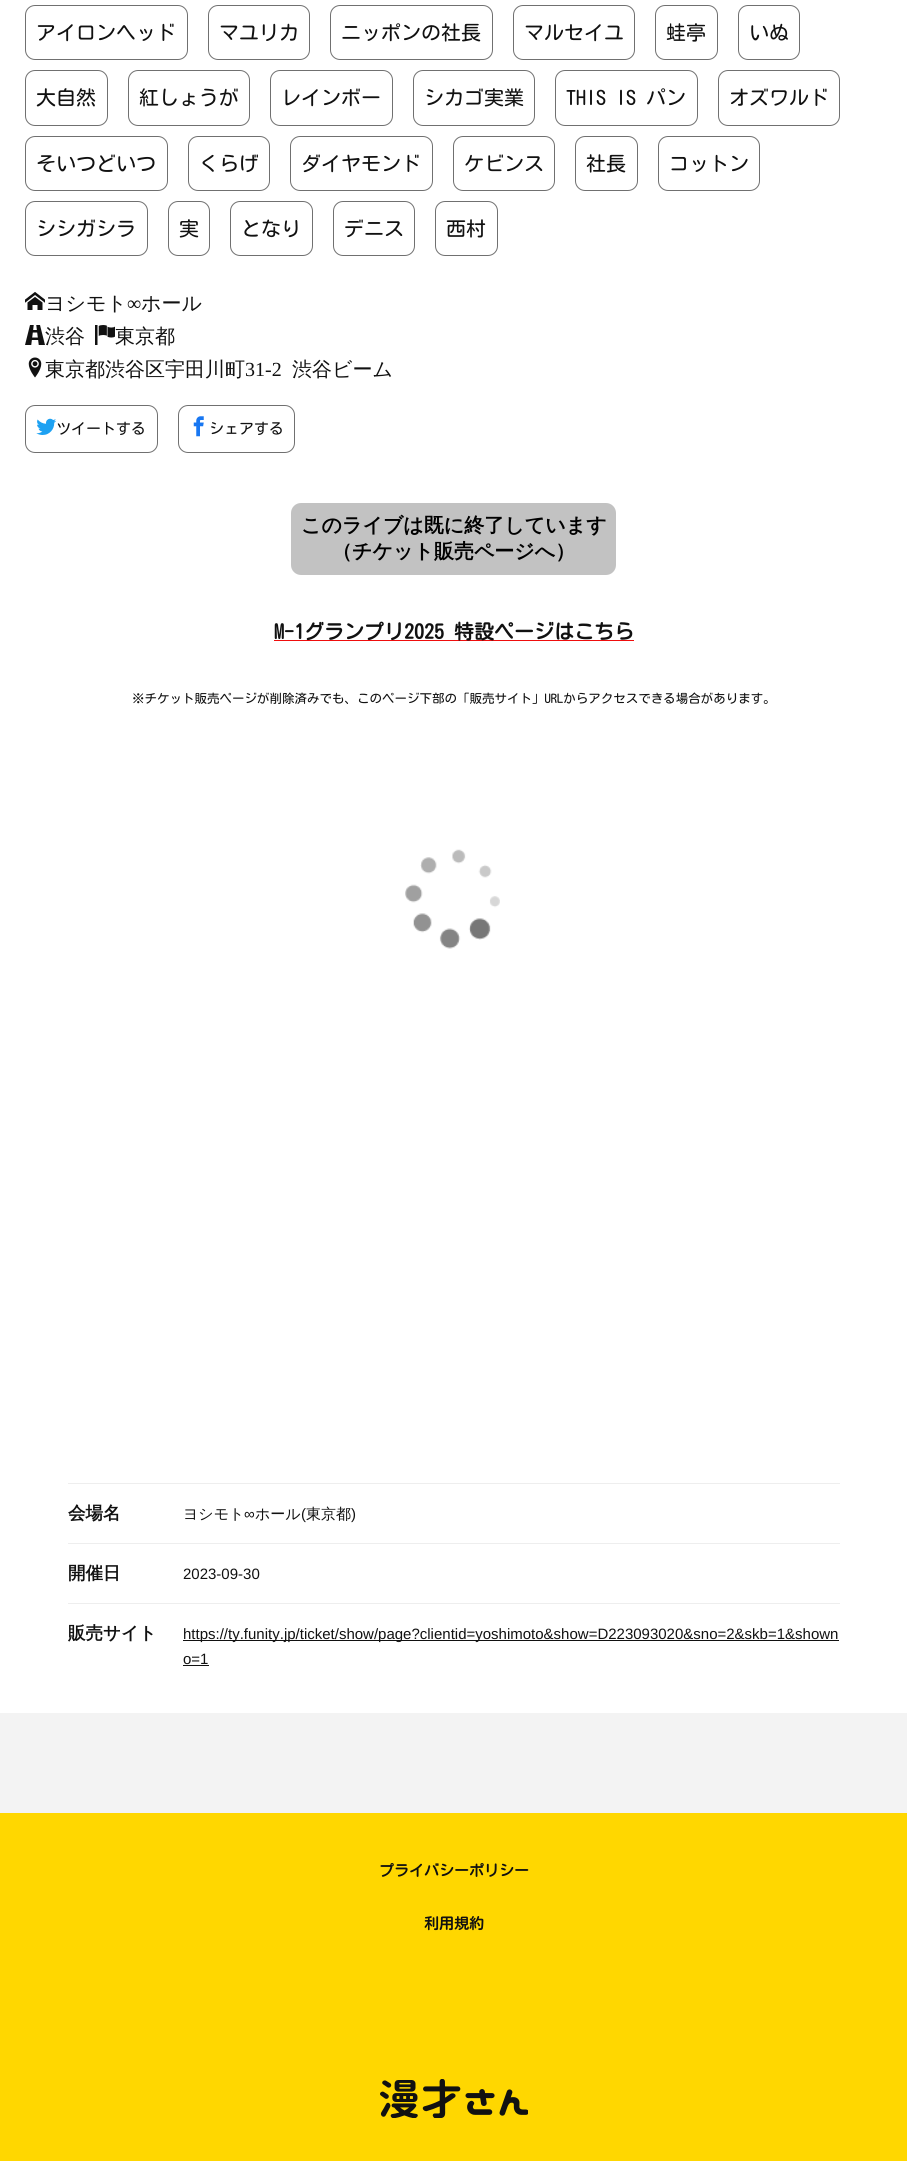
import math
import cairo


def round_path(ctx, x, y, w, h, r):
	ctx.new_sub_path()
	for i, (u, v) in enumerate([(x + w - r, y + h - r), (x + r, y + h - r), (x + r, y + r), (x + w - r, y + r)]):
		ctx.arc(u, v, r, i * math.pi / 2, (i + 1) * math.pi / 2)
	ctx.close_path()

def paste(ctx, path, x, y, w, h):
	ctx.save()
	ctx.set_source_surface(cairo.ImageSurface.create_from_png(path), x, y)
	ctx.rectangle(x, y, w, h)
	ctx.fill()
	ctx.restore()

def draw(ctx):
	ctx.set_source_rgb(0.953, 0.953, 0.953)
	ctx.paint()
	ctx.set_source_rgb(1, 1, 1)
	ctx.rectangle(0, 0, 907, 1713)
	ctx.fill()
	round_path(ctx, 25.5, 5.5, 162, 54, 9.5)
	ctx.set_source_rgb(0.439, 0.439, 0.439)
	ctx.set_line_width(1)
	ctx.stroke()
	ctx.select_font_face('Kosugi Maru')
	ctx.set_font_size(20)
	ctx.set_source_rgb(0.067, 0.067, 0.067)
	ctx.move_to(36, 40)
	ctx.show_text('アイロンヘッド')
	round_path(ctx, 208.5, 5.5, 101, 54, 9.5)
	ctx.set_source_rgb(0.439, 0.439, 0.439)
	ctx.stroke()
	ctx.set_source_rgb(0.067, 0.067, 0.067)
	ctx.move_to(219, 40)
	ctx.show_text('マユリカ')
	round_path(ctx, 330.5, 5.5, 162, 54, 9.5)
	ctx.set_source_rgb(0.439, 0.439, 0.439)
	ctx.stroke()
	ctx.set_source_rgb(0.067, 0.067, 0.067)
	ctx.move_to(341, 40)
	ctx.show_text('ニッポンの社長')
	round_path(ctx, 513.5, 5.5, 121, 54, 9.5)
	ctx.set_source_rgb(0.439, 0.439, 0.439)
	ctx.stroke()
	ctx.set_source_rgb(0.067, 0.067, 0.067)
	ctx.move_to(524, 40)
	ctx.show_text('マルセイユ')
	round_path(ctx, 655.5, 5.5, 62, 54, 9.5)
	ctx.set_source_rgb(0.439, 0.439, 0.439)
	ctx.stroke()
	ctx.set_source_rgb(0.067, 0.067, 0.067)
	ctx.move_to(666, 40)
	ctx.show_text('蛙亭')
	round_path(ctx, 738.5, 5.5, 61, 54, 9.5)
	ctx.set_source_rgb(0.439, 0.439, 0.439)
	ctx.stroke()
	ctx.set_source_rgb(0.067, 0.067, 0.067)
	ctx.move_to(749, 40)
	ctx.show_text('いぬ')
	round_path(ctx, 25.5, 70.5, 82, 55, 9.5)
	ctx.set_source_rgb(0.439, 0.439, 0.439)
	ctx.stroke()
	ctx.set_source_rgb(0.067, 0.067, 0.067)
	ctx.move_to(36, 105)
	ctx.show_text('大自然')
	round_path(ctx, 128.5, 70.5, 121, 55, 9.5)
	ctx.set_source_rgb(0.439, 0.439, 0.439)
	ctx.stroke()
	ctx.set_source_rgb(0.067, 0.067, 0.067)
	ctx.move_to(139, 105)
	ctx.show_text('紅しょうが')
	round_path(ctx, 270.5, 70.5, 122, 55, 9.5)
	ctx.set_source_rgb(0.439, 0.439, 0.439)
	ctx.stroke()
	ctx.set_source_rgb(0.067, 0.067, 0.067)
	ctx.move_to(281, 105)
	ctx.show_text('レインボー')
	round_path(ctx, 413.5, 70.5, 121, 55, 9.5)
	ctx.set_source_rgb(0.439, 0.439, 0.439)
	ctx.stroke()
	ctx.set_source_rgb(0.067, 0.067, 0.067)
	ctx.move_to(424, 105)
	ctx.show_text('シカゴ実業')
	round_path(ctx, 555.5, 70.5, 142, 55, 9.5)
	ctx.set_source_rgb(0.439, 0.439, 0.439)
	ctx.stroke()
	ctx.set_source_rgb(0.067, 0.067, 0.067)
	ctx.move_to(566, 105)
	ctx.show_text('THIS IS パン')
	round_path(ctx, 718.5, 70.5, 121, 55, 9.5)
	ctx.set_source_rgb(0.439, 0.439, 0.439)
	ctx.stroke()
	ctx.set_source_rgb(0.067, 0.067, 0.067)
	ctx.move_to(729, 105)
	ctx.show_text('オズワルド')
	round_path(ctx, 25.5, 136.5, 142, 54, 9.5)
	ctx.set_source_rgb(0.439, 0.439, 0.439)
	ctx.stroke()
	ctx.set_source_rgb(0.067, 0.067, 0.067)
	ctx.move_to(36, 171)
	ctx.show_text('そいつどいつ')
	round_path(ctx, 188.5, 136.5, 81, 54, 9.5)
	ctx.set_source_rgb(0.439, 0.439, 0.439)
	ctx.stroke()
	ctx.set_source_rgb(0.067, 0.067, 0.067)
	ctx.move_to(199, 171)
	ctx.show_text('くらげ')
	round_path(ctx, 290.5, 136.5, 142, 54, 9.5)
	ctx.set_source_rgb(0.439, 0.439, 0.439)
	ctx.stroke()
	ctx.set_source_rgb(0.067, 0.067, 0.067)
	ctx.move_to(301, 171)
	ctx.show_text('ダイヤモンド')
	round_path(ctx, 453.5, 136.5, 101, 54, 9.5)
	ctx.set_source_rgb(0.439, 0.439, 0.439)
	ctx.stroke()
	ctx.set_source_rgb(0.067, 0.067, 0.067)
	ctx.move_to(464, 171)
	ctx.show_text('ケビンス')
	round_path(ctx, 575.5, 136.5, 62, 54, 9.5)
	ctx.set_source_rgb(0.439, 0.439, 0.439)
	ctx.stroke()
	ctx.set_source_rgb(0.067, 0.067, 0.067)
	ctx.move_to(586, 171)
	ctx.show_text('社長')
	round_path(ctx, 658.5, 136.5, 101, 54, 9.5)
	ctx.set_source_rgb(0.439, 0.439, 0.439)
	ctx.stroke()
	ctx.set_source_rgb(0.067, 0.067, 0.067)
	ctx.move_to(669, 171)
	ctx.show_text('コットン')
	round_path(ctx, 25.5, 201.5, 122, 54, 9.5)
	ctx.set_source_rgb(0.439, 0.439, 0.439)
	ctx.stroke()
	ctx.set_source_rgb(0.067, 0.067, 0.067)
	ctx.move_to(36, 236)
	ctx.show_text('シシガシラ')
	round_path(ctx, 168.5, 201.5, 41, 54, 9.5)
	ctx.set_source_rgb(0.439, 0.439, 0.439)
	ctx.stroke()
	ctx.set_source_rgb(0.067, 0.067, 0.067)
	ctx.move_to(179, 236)
	ctx.show_text('実')
	round_path(ctx, 230.5, 201.5, 82, 54, 9.5)
	ctx.set_source_rgb(0.439, 0.439, 0.439)
	ctx.stroke()
	ctx.set_source_rgb(0.067, 0.067, 0.067)
	ctx.move_to(241, 236)
	ctx.show_text('となり')
	round_path(ctx, 333.5, 201.5, 81, 54, 9.5)
	ctx.set_source_rgb(0.439, 0.439, 0.439)
	ctx.stroke()
	ctx.set_source_rgb(0.067, 0.067, 0.067)
	ctx.move_to(344, 236)
	ctx.show_text('デニス')
	round_path(ctx, 435.5, 201.5, 62, 54, 9.5)
	ctx.set_source_rgb(0.439, 0.439, 0.439)
	ctx.stroke()
	ctx.set_source_rgb(0.067, 0.067, 0.067)
	ctx.move_to(446, 236)
	ctx.show_text('西村')
	paste(ctx, 'media/1.png', 25, 292, 20, 18)
	ctx.select_font_face('WenQuanYi Zen Hei Medium')
	ctx.move_to(45, 310)
	ctx.show_text('ヨシモト')
	ctx.select_font_face('Liberation Serif')
	ctx.move_to(127, 310)
	ctx.show_text('∞')
	ctx.select_font_face('WenQuanYi Zen Hei Medium')
	ctx.move_to(141, 310)
	ctx.show_text('ホール')
	paste(ctx, 'media/2.png', 25, 325, 20, 20)
	ctx.move_to(45, 343)
	ctx.show_text('渋谷')
	paste(ctx, 'media/3.png', 95, 325, 20, 20)
	ctx.move_to(115, 343)
	ctx.show_text('東京都')
	paste(ctx, 'media/4.png', 28, 357, 14, 21)
	ctx.move_to(45, 376)
	ctx.show_text('東京都渋谷区宇田川町')
	ctx.select_font_face('Liberation Serif')
	ctx.move_to(245, 376)
	ctx.show_text('31-2')
	ctx.select_font_face('WenQuanYi Zen Hei Medium')
	ctx.move_to(292, 376)
	ctx.show_text('渋谷ビーム')
	round_path(ctx, 25.5, 405.5, 132, 47, 9.5)
	ctx.set_source_rgb(0.439, 0.439, 0.439)
	ctx.stroke()
	paste(ctx, 'media/5.png', 36, 418, 21, 17)
	ctx.select_font_face('Kosugi Maru')
	ctx.set_font_size(15)
	ctx.set_source_rgb(0.067, 0.067, 0.067)
	ctx.move_to(56, 434)
	ctx.show_text('ツイートする')
	round_path(ctx, 178.5, 405.5, 116, 47, 9.5)
	ctx.set_source_rgb(0.439, 0.439, 0.439)
	ctx.stroke()
	paste(ctx, 'media/6.png', 193, 416, 11, 21)
	ctx.set_source_rgb(0.067, 0.067, 0.067)
	ctx.move_to(209, 434)
	ctx.show_text('シェアする')
	ctx.set_source_rgb(0.761, 0.761, 0.761)
	round_path(ctx, 291, 503, 325, 72, 10)
	ctx.fill()
	ctx.select_font_face('WenQuanYi Zen Hei', cairo.FONT_SLANT_NORMAL, cairo.FONT_WEIGHT_BOLD)
	ctx.set_font_size(20)
	ctx.set_source_rgb(0, 0, 0)
	ctx.move_to(301, 532)
	ctx.show_text('このライブは既に終了しています')
	ctx.move_to(332, 558)
	ctx.show_text('（チケット販売ページへ）')
	ctx.set_source_rgb(0.937, 0.051, 0.051)
	ctx.rectangle(274, 640, 360, 1)
	ctx.fill()
	ctx.select_font_face('Kosugi Maru', cairo.FONT_SLANT_NORMAL, cairo.FONT_WEIGHT_BOLD)
	ctx.set_source_rgb(0.067, 0.067, 0.067)
	ctx.move_to(274, 639)
	ctx.show_text('M-1グランプリ2025 特設ページはこちら')
	ctx.select_font_face('Kosugi Maru')
	ctx.set_font_size(12.5)
	ctx.move_to(132, 703)
	ctx.show_text('※チケット販売ページが削除済みでも、このページ下部の「販売サイト」URLからアクセスできる場合があります。')
	paste(ctx, 'media/7.png', 405, 849, 95, 100)
	ctx.set_source_rgb(0.933, 0.933, 0.933)
	ctx.rectangle(68, 1483, 772, 1)
	ctx.fill()
	ctx.select_font_face('WenQuanYi Zen Hei', cairo.FONT_SLANT_NORMAL, cairo.FONT_WEIGHT_BOLD)
	ctx.set_font_size(17.5)
	ctx.set_source_rgb(0.067, 0.067, 0.067)
	ctx.move_to(68, 1519)
	ctx.show_text('会場名')
	ctx.select_font_face('WenQuanYi Zen Hei Medium')
	ctx.set_font_size(15)
	ctx.move_to(183, 1519)
	ctx.show_text('ヨシモト')
	ctx.select_font_face('Liberation Sans')
	ctx.move_to(244, 1519)
	ctx.show_text('∞')
	ctx.select_font_face('WenQuanYi Zen Hei Medium')
	ctx.move_to(255, 1519)
	ctx.show_text('ホール')
	ctx.select_font_face('Liberation Sans')
	ctx.move_to(301, 1519)
	ctx.show_text('(')
	ctx.select_font_face('WenQuanYi Zen Hei Medium')
	ctx.move_to(306, 1519)
	ctx.show_text('東京都')
	ctx.select_font_face('Liberation Sans')
	ctx.move_to(351, 1519)
	ctx.show_text(')')
	ctx.set_source_rgb(0.933, 0.933, 0.933)
	ctx.rectangle(68, 1543, 772, 1)
	ctx.fill()
	ctx.select_font_face('WenQuanYi Zen Hei', cairo.FONT_SLANT_NORMAL, cairo.FONT_WEIGHT_BOLD)
	ctx.set_font_size(17.5)
	ctx.set_source_rgb(0.067, 0.067, 0.067)
	ctx.move_to(68, 1579)
	ctx.show_text('開催日')
	ctx.select_font_face('Liberation Sans')
	ctx.set_font_size(15)
	ctx.move_to(183, 1579)
	ctx.show_text('2023-09-30')
	ctx.set_source_rgb(0.933, 0.933, 0.933)
	ctx.rectangle(68, 1603, 772, 1)
	ctx.fill()
	ctx.select_font_face('WenQuanYi Zen Hei', cairo.FONT_SLANT_NORMAL, cairo.FONT_WEIGHT_BOLD)
	ctx.set_font_size(17.5)
	ctx.set_source_rgb(0.067, 0.067, 0.067)
	ctx.move_to(68, 1639)
	ctx.show_text('販売サイト')
	ctx.rectangle(183, 1640, 656, 1)
	ctx.fill()
	ctx.select_font_face('Liberation Sans')
	ctx.set_font_size(15)
	ctx.move_to(183, 1639)
	ctx.show_text('https://ty.funity.jp/ticket/show/page?clientid=yoshimoto&show=D223093020&sno=2&skb=1&shown')
	ctx.move_to(183, 1664)
	ctx.show_text('o=1')
	ctx.rectangle(183, 1665, 26, 1)
	ctx.fill()
	ctx.set_source_rgb(1, 0.843, 0)
	ctx.rectangle(0, 1813, 907, 348)
	ctx.fill()
	ctx.select_font_face('Kosugi Maru', cairo.FONT_SLANT_NORMAL, cairo.FONT_WEIGHT_BOLD)
	ctx.set_source_rgb(0.067, 0.067, 0.067)
	ctx.move_to(379, 1876)
	ctx.show_text('プライバシーポリシー')
	ctx.move_to(424, 1929)
	ctx.show_text('利用規約')
	paste(ctx, 'media/8.png', 380, 2079, 148, 39)


surface = cairo.ImageSurface(cairo.FORMAT_RGB24, 907, 2161)
ctx = cairo.Context(surface)
options = cairo.FontOptions()
options.set_hint_metrics(cairo.HINT_METRICS_OFF)
options.set_hint_style(cairo.HINT_STYLE_NONE)
ctx.set_font_options(options)
ctx.set_miter_limit(4)
draw(ctx)
surface.write_to_png('image.png')
